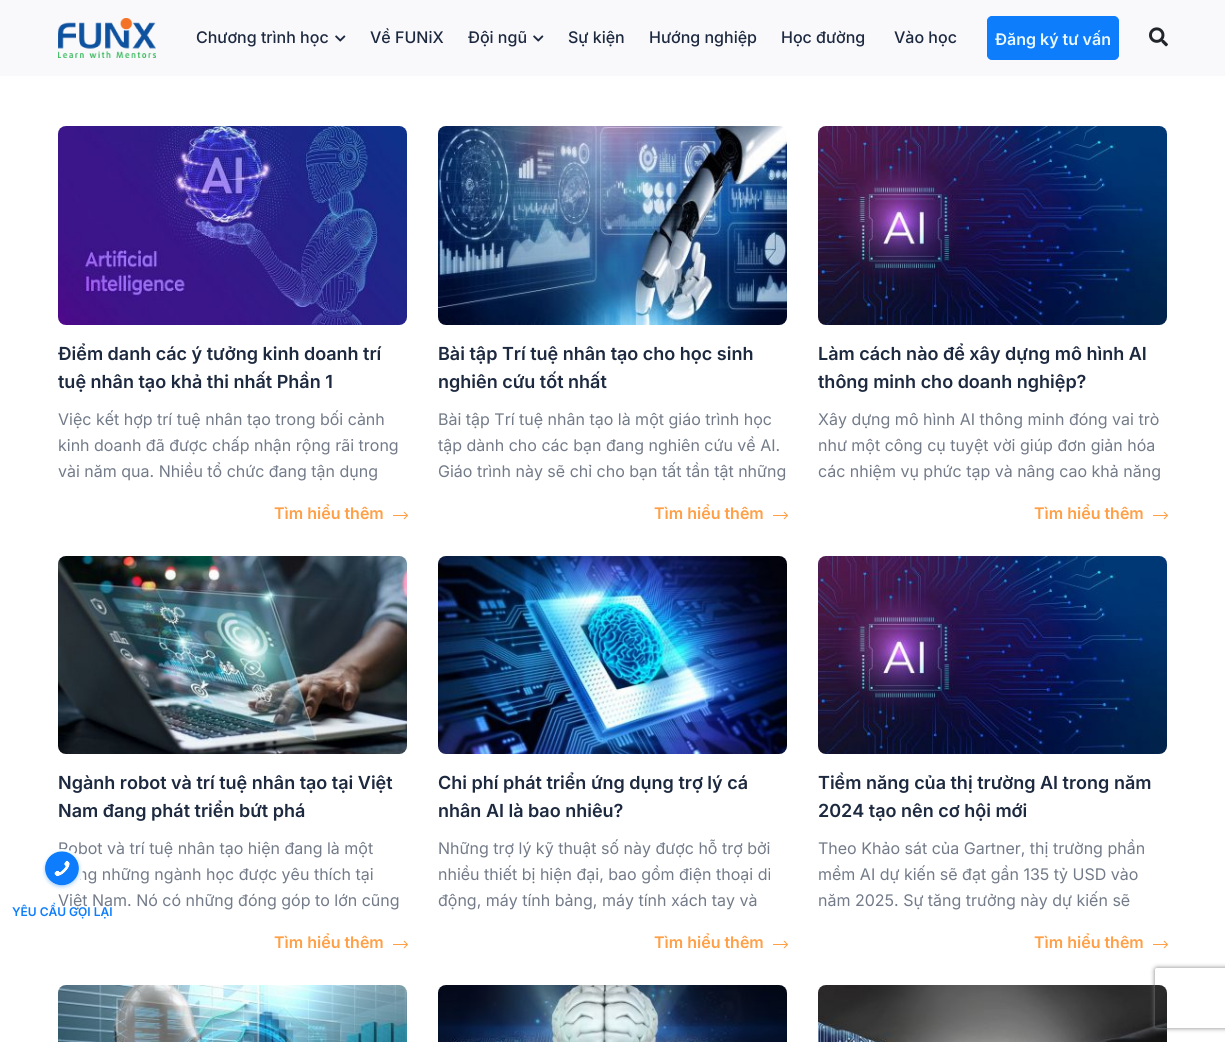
import math
import cairo


def round_path(ctx, x, y, w, h, r):
	ctx.new_sub_path()
	for i, (u, v) in enumerate([(x + w - r, y + h - r), (x + r, y + h - r), (x + r, y + r), (x + w - r, y + r)]):
		ctx.arc(u, v, r, i * math.pi / 2, (i + 1) * math.pi / 2)
	ctx.close_path()

def blur_box(ctx, x, y, w, h, r, blur, alpha):
	ctx.push_group_with_content(cairo.CONTENT_ALPHA)
	ctx.set_operator(cairo.OPERATOR_SOURCE)
	for i in range(15, -16, -2):
		e = blur * i / 6
		if min(w, h) + 2 * e > 0:
			ctx.set_source_rgba(0, 0, 0, alpha * math.erfc((i - 1) / 8.5) / 2)
			round_path(ctx, x - e, y - e, w + 2 * e, h + 2 * e, max(0, min(r + e + blur * .6, min(w, h) / 2 + e)))
			ctx.fill()
	ctx.mask(ctx.pop_group())

def paste(ctx, path, x, y, w, h):
	ctx.save()
	ctx.set_source_surface(cairo.ImageSurface.create_from_png(path), x, y)
	ctx.rectangle(x, y, w, h)
	ctx.fill()
	ctx.restore()

def draw(ctx):
	ctx.set_source_rgb(1, 1, 1)
	ctx.paint()
	ctx.set_source_rgb(0.973, 0.976, 0.988)
	ctx.rectangle(0, 0, 1225, 76)
	ctx.fill()
	paste(ctx, 'media/1.png', 58, 18, 98, 40)
	ctx.select_font_face('Inter Medium')
	ctx.set_font_size(16)
	ctx.set_source_rgb(0.114, 0.161, 0.247)
	ctx.move_to(196, 43)
	ctx.show_text('Chương trình học')
	paste(ctx, 'media/2.png', 335, 35, 11, 7)
	ctx.move_to(370, 43)
	ctx.show_text('Về FUNiX')
	ctx.move_to(468, 43)
	ctx.show_text('Đội ngũ')
	paste(ctx, 'media/2.png', 533, 35, 11, 7)
	for x, y, s in [
		(568, 43, 'Sự kiện'),
		(649, 43, 'Hướng nghiệp'),
		(781, 43, 'Học đường'),
		(894, 43, 'Vào học'),
	]:
		ctx.move_to(x, y)
		ctx.show_text(s)
	ctx.set_source_rgb(0.051, 0.49, 0.988)
	round_path(ctx, 987.5, 16.5, 131, 43, 4.5)
	ctx.fill_preserve()
	ctx.set_line_width(1)
	ctx.stroke()
	ctx.select_font_face('Inter SemiBold')
	ctx.set_source_rgb(0.914, 0.969, 0.996)
	ctx.move_to(995, 45)
	ctx.show_text('Đăng ký tư vấn')
	paste(ctx, 'media/3.png', 1149, 27, 19, 20)
	paste(ctx, 'media/4.png', 58, 126, 349, 199)
	ctx.save()
	ctx.rectangle(58, 340, 350, 56)
	ctx.clip()
	ctx.set_font_size(18)
	ctx.set_source_rgb(0.114, 0.161, 0.247)
	ctx.move_to(58, 360)
	ctx.show_text('Điểm danh các ý tưởng kinh doanh trí')
	ctx.restore()
	ctx.set_font_size(18)
	ctx.set_source_rgb(0.114, 0.161, 0.247)
	ctx.move_to(58, 388)
	ctx.show_text('tuệ nhân tạo khả thi nhất Phần 1')
	ctx.select_font_face('Inter')
	ctx.set_font_size(16)
	ctx.set_source_rgb(0.451, 0.482, 0.537)
	for x, y, s in [
		(58, 425, 'Việc kết hợp trí tuệ nhân tạo trong bối cảnh'),
		(58, 451, 'kinh doanh đã được chấp nhận rộng rãi trong'),
		(58, 477, 'vài năm qua. Nhiều tổ chức đang tận dụng'),
	]:
		ctx.move_to(x, y)
		ctx.show_text(s)
	ctx.select_font_face('Inter SemiBold')
	ctx.set_source_rgb(1, 0.624, 0.275)
	ctx.move_to(274, 519)
	ctx.show_text('Tìm hiểu thêm')
	paste(ctx, 'media/5.png', 393, 511, 15, 9)
	paste(ctx, 'media/6.png', 438, 126, 349, 199)
	ctx.set_font_size(18)
	ctx.set_source_rgb(0.114, 0.161, 0.247)
	ctx.move_to(438, 360)
	ctx.show_text('Bài tập Trí tuệ nhân tạo cho học sinh')
	ctx.move_to(438, 388)
	ctx.show_text('nghiên cứu tốt nhất')
	ctx.select_font_face('Inter')
	ctx.set_font_size(16)
	ctx.set_source_rgb(0.451, 0.482, 0.537)
	for x, y, s in [
		(438, 425, 'Bài tập Trí tuệ nhân tạo là một giáo trình học'),
		(438, 451, 'tập dành cho các bạn đang nghiên cứu về AI.'),
		(438, 477, 'Giáo trình này sẽ chỉ cho bạn tất tần tật những'),
	]:
		ctx.move_to(x, y)
		ctx.show_text(s)
	ctx.select_font_face('Inter SemiBold')
	ctx.set_source_rgb(1, 0.624, 0.275)
	ctx.move_to(654, 519)
	ctx.show_text('Tìm hiểu thêm')
	paste(ctx, 'media/5.png', 773, 511, 15, 9)
	paste(ctx, 'media/7.png', 818, 126, 349, 199)
	ctx.set_font_size(18)
	ctx.set_source_rgb(0.114, 0.161, 0.247)
	ctx.move_to(818, 360)
	ctx.show_text('Làm cách nào để xây dựng mô hình AI')
	ctx.move_to(818, 388)
	ctx.show_text('thông minh cho doanh nghiệp?')
	ctx.select_font_face('Inter')
	ctx.set_font_size(16)
	ctx.set_source_rgb(0.451, 0.482, 0.537)
	for x, y, s in [
		(818, 425, 'Xây dựng mô hình AI thông minh đóng vai trò'),
		(818, 451, 'như một công cụ tuyệt vời giúp đơn giản hóa'),
		(818, 477, 'các nhiệm vụ phức tạp và nâng cao khả năng'),
	]:
		ctx.move_to(x, y)
		ctx.show_text(s)
	ctx.select_font_face('Inter SemiBold')
	ctx.set_source_rgb(1, 0.624, 0.275)
	ctx.move_to(1034, 519)
	ctx.show_text('Tìm hiểu thêm')
	paste(ctx, 'media/5.png', 1153, 511, 15, 9)
	paste(ctx, 'media/8.png', 58, 556, 349, 198)
	ctx.set_font_size(18)
	ctx.set_source_rgb(0.114, 0.161, 0.247)
	ctx.move_to(58, 789)
	ctx.show_text('Ngành robot và trí tuệ nhân tạo tại Việt')
	ctx.move_to(58, 817)
	ctx.show_text('Nam đang phát triển bứt phá')
	ctx.select_font_face('Inter')
	ctx.set_font_size(16)
	ctx.set_source_rgb(0.451, 0.482, 0.537)
	for x, y, s in [
		(58, 854, 'Robot và trí tuệ nhân tạo hiện đang là một'),
		(78, 880, 'ng những ngành học được yêu thích tại'),
		(58, 906, 'Việt Nam. Nó có những đóng góp to lớn cũng'),
	]:
		ctx.move_to(x, y)
		ctx.show_text(s)
	ctx.select_font_face('Inter SemiBold')
	ctx.set_source_rgb(1, 0.624, 0.275)
	ctx.move_to(274, 948)
	ctx.show_text('Tìm hiểu thêm')
	paste(ctx, 'media/5.png', 393, 940, 15, 9)
	paste(ctx, 'media/9.png', 438, 556, 349, 198)
	ctx.set_font_size(18)
	ctx.set_source_rgb(0.114, 0.161, 0.247)
	ctx.move_to(438, 789)
	ctx.show_text('Chi phí phát triển ứng dụng trợ lý cá')
	ctx.move_to(438, 817)
	ctx.show_text('nhân AI là bao nhiêu?')
	ctx.select_font_face('Inter')
	ctx.set_font_size(16)
	ctx.set_source_rgb(0.451, 0.482, 0.537)
	for x, y, s in [
		(438, 854, 'Những trợ lý kỹ thuật số này được hỗ trợ bởi'),
		(438, 880, 'nhiều thiết bị hiện đại, bao gồm điện thoại di'),
		(438, 906, 'động, máy tính bảng, máy tính xách tay và'),
	]:
		ctx.move_to(x, y)
		ctx.show_text(s)
	ctx.select_font_face('Inter SemiBold')
	ctx.set_source_rgb(1, 0.624, 0.275)
	ctx.move_to(654, 948)
	ctx.show_text('Tìm hiểu thêm')
	paste(ctx, 'media/5.png', 773, 940, 15, 9)
	paste(ctx, 'media/10.png', 818, 556, 349, 198)
	ctx.set_font_size(18)
	ctx.set_source_rgb(0.114, 0.161, 0.247)
	ctx.move_to(818, 789)
	ctx.show_text('Tiềm năng của thị trường AI trong năm')
	ctx.move_to(818, 817)
	ctx.show_text('2024 tạo nên cơ hội mới')
	ctx.select_font_face('Inter')
	ctx.set_font_size(16)
	ctx.set_source_rgb(0.451, 0.482, 0.537)
	for x, y, s in [
		(818, 854, 'Theo Khảo sát của Gartner, thị trường phần'),
		(818, 880, 'mềm AI dự kiến sẽ đạt gần 135 tỷ USD vào'),
		(818, 906, 'năm 2025. Sự tăng trưởng này dự kiến sẽ'),
	]:
		ctx.move_to(x, y)
		ctx.show_text(s)
	ctx.select_font_face('Inter SemiBold')
	ctx.set_source_rgb(1, 0.624, 0.275)
	ctx.move_to(1034, 948)
	ctx.show_text('Tìm hiểu thêm')
	paste(ctx, 'media/5.png', 1153, 940, 15, 9)
	paste(ctx, 'media/11.png', 58, 985, 349, 57)
	paste(ctx, 'media/12.png', 438, 985, 349, 57)
	paste(ctx, 'media/13.png', 818, 985, 349, 57)
	paste(ctx, 'media/14.png', 41, 849, 42, 41)
	ctx.set_font_size(12)
	ctx.set_source_rgb(0.051, 0.49, 0.988)
	ctx.move_to(12, 916)
	ctx.show_text('YÊU CẦU GỌI LẠI')
	ctx.save()
	ctx.set_fill_rule(cairo.FILL_RULE_EVEN_ODD)
	ctx.new_path()
	ctx.move_to(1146, 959)
	ctx.line_to(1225, 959)
	ctx.line_to(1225, 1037)
	ctx.line_to(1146, 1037)
	ctx.close_path()
	ctx.move_to(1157, 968)
	ctx.line_to(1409, 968)
	ctx.curve_to(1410, 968, 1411, 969, 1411, 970)
	ctx.line_to(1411, 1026)
	ctx.curve_to(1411, 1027, 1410, 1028, 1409, 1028)
	ctx.line_to(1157, 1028)
	ctx.curve_to(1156, 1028, 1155, 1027, 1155, 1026)
	ctx.line_to(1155, 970)
	ctx.curve_to(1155, 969, 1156, 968, 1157, 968)
	ctx.close_path()
	ctx.clip()
	ctx.set_source_rgb(0.502, 0.502, 0.502)
	blur_box(ctx, 1155, 968, 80, 60, 2, 2.5, 1)
	ctx.restore()


surface = cairo.ImageSurface(cairo.FORMAT_RGB24, 1225, 1042)
ctx = cairo.Context(surface)
options = cairo.FontOptions()
options.set_hint_metrics(cairo.HINT_METRICS_OFF)
options.set_hint_style(cairo.HINT_STYLE_NONE)
ctx.set_font_options(options)
ctx.set_miter_limit(4)
draw(ctx)
surface.write_to_png('image.png')
